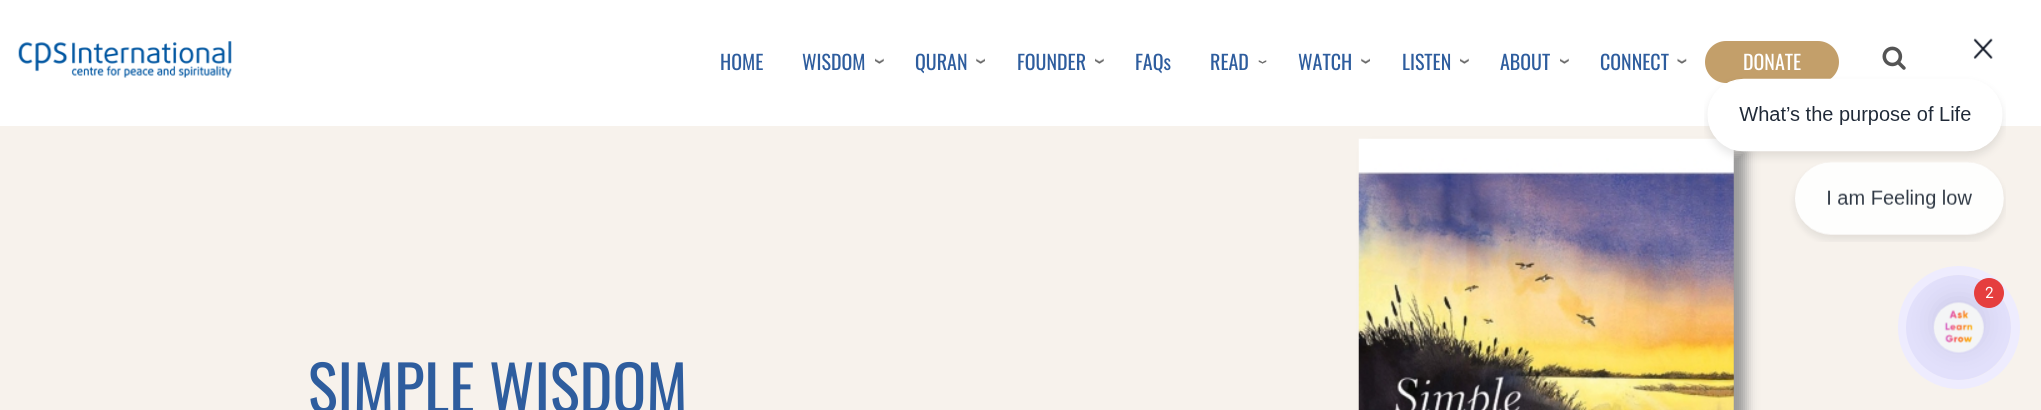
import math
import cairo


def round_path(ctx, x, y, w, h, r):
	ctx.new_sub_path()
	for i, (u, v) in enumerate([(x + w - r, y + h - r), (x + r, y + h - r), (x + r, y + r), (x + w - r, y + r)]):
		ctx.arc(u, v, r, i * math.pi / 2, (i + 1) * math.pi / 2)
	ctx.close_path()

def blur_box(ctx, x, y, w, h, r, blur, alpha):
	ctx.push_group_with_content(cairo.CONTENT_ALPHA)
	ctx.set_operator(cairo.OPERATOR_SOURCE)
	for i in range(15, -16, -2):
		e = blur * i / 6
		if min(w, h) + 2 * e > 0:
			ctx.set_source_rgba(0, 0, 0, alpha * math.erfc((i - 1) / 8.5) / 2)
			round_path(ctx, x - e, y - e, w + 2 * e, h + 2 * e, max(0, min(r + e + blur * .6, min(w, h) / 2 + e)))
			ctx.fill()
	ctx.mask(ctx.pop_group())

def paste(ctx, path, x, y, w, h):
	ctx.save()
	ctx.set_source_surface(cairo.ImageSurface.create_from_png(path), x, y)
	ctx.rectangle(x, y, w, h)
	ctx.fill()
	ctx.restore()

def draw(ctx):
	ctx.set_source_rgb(1, 1, 1)
	ctx.paint()
	paste(ctx, 'media/1.png', 18, 41, 214, 37)
	ctx.select_font_face('Oswald')
	ctx.set_font_size(20)
	ctx.set_source_rgb(0.18, 0.365, 0.62)
	ctx.move_to(720, 70)
	ctx.show_text('HOME')
	ctx.move_to(802, 70)
	ctx.show_text('WISDOM')
	paste(ctx, 'media/2.png', 875, 58, 9, 6)
	ctx.move_to(915, 70)
	ctx.show_text('QURAN')
	paste(ctx, 'media/3.png', 976, 58, 9, 6)
	ctx.move_to(1017, 70)
	ctx.show_text('FOUNDER')
	paste(ctx, 'media/2.png', 1095, 58, 9, 6)
	ctx.move_to(1135, 70)
	ctx.show_text('FAQs')
	ctx.move_to(1210, 70)
	ctx.show_text('READ')
	paste(ctx, 'media/4.png', 1258, 60, 9, 4)
	ctx.move_to(1298, 70)
	ctx.show_text('WATCH')
	paste(ctx, 'media/3.png', 1361, 58, 9, 6)
	ctx.move_to(1402, 70)
	ctx.show_text('LISTEN')
	paste(ctx, 'media/2.png', 1460, 58, 9, 6)
	ctx.move_to(1500, 70)
	ctx.show_text('ABOUT')
	paste(ctx, 'media/2.png', 1560, 58, 9, 6)
	ctx.move_to(1600, 70)
	ctx.show_text('CONNECT')
	paste(ctx, 'media/5.png', 1677, 58, 10, 6)
	ctx.set_source_rgb(0.765, 0.624, 0.416)
	round_path(ctx, 1705, 41, 134, 42, 21)
	ctx.fill()
	ctx.set_source_rgb(1, 1, 1)
	ctx.move_to(1743, 70)
	ctx.show_text('DONATE')
	paste(ctx, 'media/6.png', 1882, 46, 24, 24)
	ctx.set_source_rgb(0.965, 0.949, 0.925)
	ctx.rectangle(0, 126, 2041, 284)
	ctx.fill()
	ctx.set_font_size(62.5)
	ctx.set_source_rgb(0.18, 0.365, 0.62)
	ctx.move_to(308, 413)
	ctx.show_text('SIMPLE WISDOM')
	ctx.set_source_rgb(0.6, 0.6, 0.6)
	blur_box(ctx, 1371, 151, 375, 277, 0, 6, 1)
	paste(ctx, 'media/7.png', 1358, 138, 376, 272)
	paste(ctx, 'media/8.png', 1704, 38, 302, 204)
	round_path(ctx, 1902.5, 270.5, 113, 114, 56.5)
	ctx.set_source_rgb(0.933, 0.925, 0.996)
	ctx.set_line_width(9)
	ctx.stroke()
	ctx.set_source_rgb(0.886, 0.878, 0.984)
	ctx.arc(1958.5, 327.5, 52.5, 0, 2 * math.pi)
	ctx.fill()
	ctx.set_source_rgb(0.02, 0.004, 0.176)
	blur_box(ctx, 1934, 298, 50, 50, 25, 12.5, 0.1)
	paste(ctx, 'media/9.png', 1933, 302, 51, 51)
	ctx.set_source_rgb(0.898, 0.243, 0.243)
	ctx.arc(1989, 293, 15, 0, 2 * math.pi)
	ctx.fill()
	ctx.select_font_face('Roboto', cairo.FONT_SLANT_NORMAL, cairo.FONT_WEIGHT_BOLD)
	ctx.set_font_size(15)
	ctx.set_source_rgb(1, 1, 1)
	ctx.move_to(1985, 298)
	ctx.show_text('2')


surface = cairo.ImageSurface(cairo.FORMAT_RGB24, 2041, 410)
ctx = cairo.Context(surface)
options = cairo.FontOptions()
options.set_hint_metrics(cairo.HINT_METRICS_OFF)
options.set_hint_style(cairo.HINT_STYLE_NONE)
ctx.set_font_options(options)
ctx.set_miter_limit(4)
draw(ctx)
surface.write_to_png('image.png')
